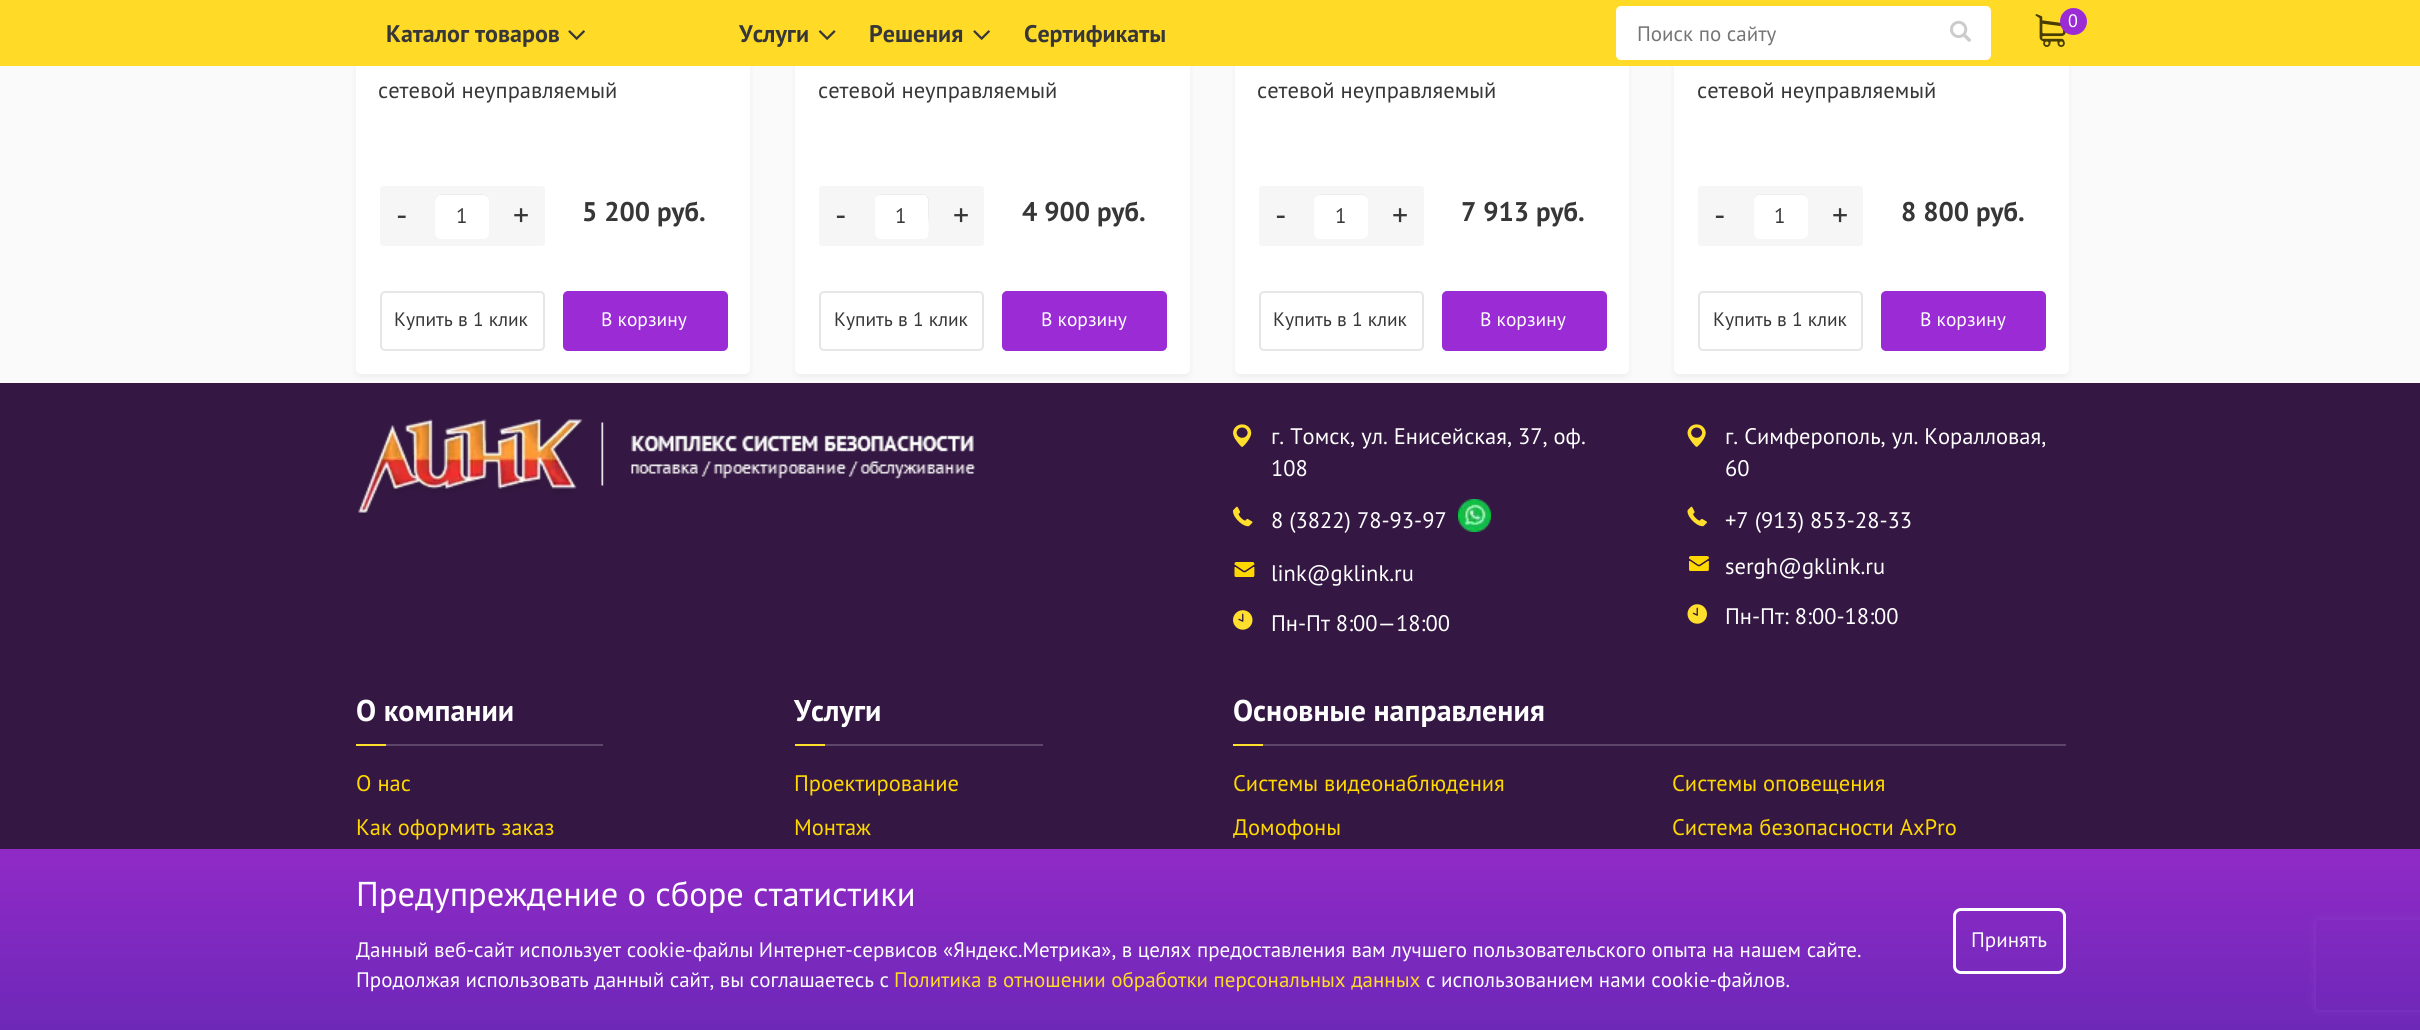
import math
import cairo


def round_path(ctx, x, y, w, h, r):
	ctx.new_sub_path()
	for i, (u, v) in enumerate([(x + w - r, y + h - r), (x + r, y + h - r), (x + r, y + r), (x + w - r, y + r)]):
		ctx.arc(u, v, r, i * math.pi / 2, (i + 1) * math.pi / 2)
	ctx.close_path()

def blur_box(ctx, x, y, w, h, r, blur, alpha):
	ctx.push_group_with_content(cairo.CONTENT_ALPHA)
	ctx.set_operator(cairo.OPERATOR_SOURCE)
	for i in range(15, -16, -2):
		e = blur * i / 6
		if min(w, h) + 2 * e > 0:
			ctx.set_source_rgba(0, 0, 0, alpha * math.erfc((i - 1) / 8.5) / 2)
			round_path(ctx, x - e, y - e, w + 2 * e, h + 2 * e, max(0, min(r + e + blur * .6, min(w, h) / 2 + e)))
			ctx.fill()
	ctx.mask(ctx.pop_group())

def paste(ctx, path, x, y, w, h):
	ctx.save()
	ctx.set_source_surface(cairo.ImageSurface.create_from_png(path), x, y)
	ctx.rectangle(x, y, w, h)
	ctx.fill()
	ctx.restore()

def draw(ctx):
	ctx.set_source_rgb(0.98, 0.98, 0.98)
	ctx.paint()
	ctx.set_source_rgb(0, 0, 0)
	blur_box(ctx, 356, -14, 394, 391, 5, 3, 0.05)
	ctx.set_source_rgb(1, 1, 1)
	round_path(ctx, 356, -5, 394, 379, 5)
	ctx.fill()
	ctx.set_source_rgb(0, 0, 0)
	blur_box(ctx, 795, -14, 395, 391, 5, 3, 0.05)
	ctx.set_source_rgb(1, 1, 1)
	round_path(ctx, 795, -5, 395, 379, 5)
	ctx.fill()
	ctx.set_source_rgb(0, 0, 0)
	blur_box(ctx, 1235, -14, 394, 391, 5, 3, 0.05)
	ctx.set_source_rgb(1, 1, 1)
	round_path(ctx, 1235, -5, 394, 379, 5)
	ctx.fill()
	ctx.set_source_rgb(0, 0, 0)
	blur_box(ctx, 1674, -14, 395, 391, 5, 3, 0.05)
	ctx.set_source_rgb(1, 1, 1)
	round_path(ctx, 1674, -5, 395, 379, 5)
	ctx.fill()
	ctx.set_source_rgb(1, 0.859, 0.157)
	ctx.rectangle(0, 0, 2420, 66)
	ctx.fill()
	ctx.select_font_face('PT Sans', cairo.FONT_SLANT_NORMAL, cairo.FONT_WEIGHT_BOLD)
	ctx.set_font_size(24)
	ctx.set_source_rgb(0.216, 0.216, 0.216)
	ctx.move_to(386, 42)
	ctx.show_text('Каталог товаров')
	paste(ctx, 'media/1.png', 568, 30, 17, 10)
	ctx.move_to(739, 42)
	ctx.show_text('Услуги')
	paste(ctx, 'media/2.png', 818, 30, 18, 10)
	ctx.move_to(869, 42)
	ctx.show_text('Решения')
	paste(ctx, 'media/1.png', 973, 30, 17, 10)
	ctx.move_to(1024, 42)
	ctx.show_text('Сертификаты')
	paste(ctx, 'media/3.png', 2035, 14, 31, 33)
	ctx.set_source_rgb(0.608, 0.173, 0.835)
	ctx.arc(2073.5, 21.5, 13.5, 0, 2 * math.pi)
	ctx.fill()
	ctx.select_font_face('PT Sans')
	ctx.set_font_size(18)
	ctx.set_source_rgb(1, 1, 1)
	ctx.move_to(2068, 27)
	ctx.show_text('0')
	round_path(ctx, 1616, 6, 375, 54, 5)
	ctx.fill()
	ctx.set_font_size(21)
	ctx.set_source_rgb(0.459, 0.459, 0.459)
	ctx.move_to(1637, 41)
	ctx.show_text('Поиск по сайту')
	paste(ctx, 'media/4.png', 1950, 20, 21, 22)
	ctx.set_font_size(22.5)
	ctx.set_source_rgb(0.216, 0.216, 0.216)
	ctx.move_to(378, 98)
	ctx.show_text('сетевой неуправляемый')
	ctx.set_source_rgb(0.961, 0.961, 0.961)
	round_path(ctx, 380, 186, 165, 60, 3)
	ctx.fill()
	ctx.set_font_size(32)
	ctx.set_source_rgb(0.216, 0.216, 0.216)
	ctx.move_to(396, 226)
	ctx.show_text('-')
	ctx.set_source_rgb(1, 1, 1)
	round_path(ctx, 435, 194, 54, 45, 6)
	ctx.fill()
	ctx.set_source_rgb(0.925, 0.925, 0.925)
	ctx.set_fill_rule(cairo.FILL_RULE_EVEN_ODD)
	ctx.new_path()
	ctx.move_to(441, 195)
	ctx.line_to(484, 195)
	ctx.curve_to(487, 196, 489, 198, 489, 201)
	ctx.curve_to(489, 193, 483, 194, 476, 194)
	ctx.line_to(448, 194)
	ctx.curve_to(441, 194, 435, 193, 435, 202)
	ctx.curve_to(436, 198, 437, 195, 441, 195)
	ctx.close_path()
	ctx.move_to(435, 235)
	ctx.line_to(435, 228)
	ctx.close_path()
	ctx.fill()
	ctx.set_font_size(21)
	ctx.set_source_rgb(0.216, 0.216, 0.216)
	ctx.move_to(456, 223)
	ctx.show_text('1')
	ctx.set_font_size(32)
	ctx.move_to(513, 226)
	ctx.show_text('+')
	ctx.select_font_face('PT Sans', cairo.FONT_SLANT_NORMAL, cairo.FONT_WEIGHT_BOLD)
	ctx.set_font_size(27)
	ctx.move_to(582, 221)
	ctx.show_text('5 200 руб.')
	round_path(ctx, 381, 292, 163, 58, 4)
	ctx.set_source_rgb(0.902, 0.902, 0.902)
	ctx.stroke()
	ctx.select_font_face('PT Sans')
	ctx.set_font_size(19.5)
	ctx.set_source_rgb(0.216, 0.216, 0.216)
	ctx.move_to(394, 326)
	ctx.show_text('Купить в 1 клик')
	ctx.set_source_rgb(0.608, 0.173, 0.835)
	round_path(ctx, 564, 292, 163, 58, 4)
	ctx.fill_preserve()
	ctx.stroke()
	ctx.set_source_rgb(1, 1, 1)
	ctx.move_to(601, 326)
	ctx.show_text('В корзину')
	ctx.set_font_size(22.5)
	ctx.set_source_rgb(0.216, 0.216, 0.216)
	ctx.move_to(818, 98)
	ctx.show_text('сетевой неуправляемый')
	ctx.set_source_rgb(0.961, 0.961, 0.961)
	round_path(ctx, 819, 186, 165, 60, 3)
	ctx.fill()
	ctx.set_font_size(32)
	ctx.set_source_rgb(0.216, 0.216, 0.216)
	ctx.move_to(835, 226)
	ctx.show_text('-')
	ctx.set_source_rgb(1, 1, 1)
	round_path(ctx, 875, 194, 54, 45, 6)
	ctx.fill()
	ctx.set_source_rgb(0.925, 0.925, 0.925)
	ctx.set_fill_rule(cairo.FILL_RULE_WINDING)
	ctx.new_path()
	ctx.move_to(880, 195)
	ctx.line_to(924, 195)
	ctx.line_to(926, 196)
	ctx.curve_to(927, 197, 928, 199, 928, 200)
	ctx.line_to(928, 212)
	ctx.curve_to(928, 218, 930, 231, 928, 237)
	ctx.curve_to(929, 236, 929, 234, 929, 233)
	ctx.line_to(929, 200)
	ctx.curve_to(929, 197, 926, 194, 923, 194)
	ctx.line_to(881, 194)
	ctx.curve_to(879, 194, 877, 195, 876, 196)
	ctx.curve_to(877, 196, 878, 195, 880, 195)
	ctx.close_path()
	ctx.fill()
	ctx.set_font_size(21)
	ctx.set_source_rgb(0.216, 0.216, 0.216)
	ctx.move_to(895, 223)
	ctx.show_text('1')
	ctx.set_font_size(32)
	ctx.move_to(953, 226)
	ctx.show_text('+')
	ctx.select_font_face('PT Sans', cairo.FONT_SLANT_NORMAL, cairo.FONT_WEIGHT_BOLD)
	ctx.set_font_size(27)
	ctx.move_to(1022, 221)
	ctx.show_text('4 900 руб.')
	round_path(ctx, 820, 292, 163, 58, 4)
	ctx.set_source_rgb(0.902, 0.902, 0.902)
	ctx.stroke()
	ctx.select_font_face('PT Sans')
	ctx.set_font_size(19.5)
	ctx.set_source_rgb(0.216, 0.216, 0.216)
	ctx.move_to(834, 326)
	ctx.show_text('Купить в 1 клик')
	ctx.set_source_rgb(0.608, 0.173, 0.835)
	round_path(ctx, 1003, 292, 163, 58, 4)
	ctx.fill_preserve()
	ctx.stroke()
	ctx.set_source_rgb(1, 1, 1)
	ctx.move_to(1041, 326)
	ctx.show_text('В корзину')
	ctx.set_font_size(22.5)
	ctx.set_source_rgb(0.216, 0.216, 0.216)
	ctx.move_to(1257, 98)
	ctx.show_text('сетевой неуправляемый')
	ctx.set_source_rgb(0.961, 0.961, 0.961)
	round_path(ctx, 1259, 186, 165, 60, 3)
	ctx.fill()
	ctx.set_font_size(32)
	ctx.set_source_rgb(0.216, 0.216, 0.216)
	ctx.move_to(1275, 226)
	ctx.show_text('-')
	ctx.set_source_rgb(1, 1, 1)
	round_path(ctx, 1314, 194, 54, 45, 6)
	ctx.fill()
	ctx.set_source_rgb(0.925, 0.925, 0.925)
	ctx.set_fill_rule(cairo.FILL_RULE_EVEN_ODD)
	ctx.new_path()
	ctx.move_to(1320, 195)
	ctx.line_to(1363, 195)
	ctx.curve_to(1366, 196, 1368, 198, 1368, 201)
	ctx.curve_to(1368, 193, 1362, 194, 1355, 194)
	ctx.line_to(1327, 194)
	ctx.curve_to(1320, 194, 1314, 193, 1314, 202)
	ctx.curve_to(1314, 198, 1316, 195, 1320, 195)
	ctx.close_path()
	ctx.move_to(1314, 235)
	ctx.line_to(1314, 228)
	ctx.close_path()
	ctx.fill()
	ctx.set_font_size(21)
	ctx.set_source_rgb(0.216, 0.216, 0.216)
	ctx.move_to(1335, 223)
	ctx.show_text('1')
	ctx.set_font_size(32)
	ctx.move_to(1392, 226)
	ctx.show_text('+')
	ctx.select_font_face('PT Sans', cairo.FONT_SLANT_NORMAL, cairo.FONT_WEIGHT_BOLD)
	ctx.set_font_size(27)
	ctx.move_to(1461, 221)
	ctx.show_text('7 913 руб.')
	round_path(ctx, 1260, 292, 163, 58, 4)
	ctx.set_source_rgb(0.902, 0.902, 0.902)
	ctx.stroke()
	ctx.select_font_face('PT Sans')
	ctx.set_font_size(19.5)
	ctx.set_source_rgb(0.216, 0.216, 0.216)
	ctx.move_to(1273, 326)
	ctx.show_text('Купить в 1 клик')
	ctx.set_source_rgb(0.608, 0.173, 0.835)
	round_path(ctx, 1443, 292, 163, 58, 4)
	ctx.fill_preserve()
	ctx.stroke()
	ctx.set_source_rgb(1, 1, 1)
	ctx.move_to(1480, 326)
	ctx.show_text('В корзину')
	ctx.set_font_size(22.5)
	ctx.set_source_rgb(0.216, 0.216, 0.216)
	ctx.move_to(1697, 98)
	ctx.show_text('сетевой неуправляемый')
	ctx.set_source_rgb(0.961, 0.961, 0.961)
	round_path(ctx, 1698, 186, 165, 60, 3)
	ctx.fill()
	ctx.set_font_size(32)
	ctx.set_source_rgb(0.216, 0.216, 0.216)
	ctx.move_to(1714, 226)
	ctx.show_text('-')
	ctx.set_source_rgb(1, 1, 1)
	round_path(ctx, 1754, 194, 54, 45, 6)
	ctx.fill()
	ctx.set_source_rgba(0, 0, 0, 0.07)
	ctx.new_path()
	ctx.move_to(1760, 195)
	ctx.line_to(1803, 195)
	ctx.curve_to(1806, 196, 1808, 198, 1808, 201)
	ctx.line_to(1808, 200)
	ctx.curve_to(1808, 197, 1805, 194, 1802, 194)
	ctx.line_to(1760, 194)
	ctx.curve_to(1757, 194, 1754, 196, 1754, 199)
	ctx.curve_to(1755, 197, 1756, 195, 1760, 195)
	ctx.close_path()
	ctx.move_to(1754, 235)
	ctx.line_to(1754, 228)
	ctx.close_path()
	ctx.fill()
	ctx.set_font_size(21)
	ctx.set_source_rgb(0.216, 0.216, 0.216)
	ctx.move_to(1774, 223)
	ctx.show_text('1')
	ctx.set_font_size(32)
	ctx.move_to(1832, 226)
	ctx.show_text('+')
	ctx.select_font_face('PT Sans', cairo.FONT_SLANT_NORMAL, cairo.FONT_WEIGHT_BOLD)
	ctx.set_font_size(27)
	ctx.move_to(1901, 221)
	ctx.show_text('8 800 руб.')
	round_path(ctx, 1699, 292, 163, 58, 4)
	ctx.set_source_rgb(0.902, 0.902, 0.902)
	ctx.stroke()
	ctx.select_font_face('PT Sans')
	ctx.set_font_size(19.5)
	ctx.set_source_rgb(0.216, 0.216, 0.216)
	ctx.move_to(1713, 326)
	ctx.show_text('Купить в 1 клик')
	ctx.set_source_rgb(0.608, 0.173, 0.835)
	round_path(ctx, 1882, 292, 163, 58, 4)
	ctx.fill_preserve()
	ctx.stroke()
	ctx.set_source_rgb(1, 1, 1)
	ctx.move_to(1920, 326)
	ctx.show_text('В корзину')
	ctx.set_source_rgb(0.204, 0.094, 0.263)
	ctx.rectangle(0, 383, 2420, 647)
	ctx.fill()
	paste(ctx, 'media/5.png', 358, 419, 617, 97)
	paste(ctx, 'media/6.png', 1233, 424, 19, 23)
	ctx.set_font_size(22.5)
	ctx.set_source_rgb(1, 1, 1)
	ctx.move_to(1271, 444)
	ctx.show_text('г. Томск, ул. Енисейская, 37, оф.')
	ctx.move_to(1271, 476)
	ctx.show_text('108')
	paste(ctx, 'media/7.png', 1233, 506, 20, 21)
	ctx.move_to(1271, 528)
	ctx.show_text('8 (3822) 78-93-97')
	paste(ctx, 'media/8.png', 1458, 499, 33, 33)
	paste(ctx, 'media/9.png', 1234, 562, 21, 15)
	ctx.move_to(1271, 581)
	ctx.show_text('link@gklink.ru')
	paste(ctx, 'media/10.png', 1233, 610, 20, 20)
	ctx.move_to(1271, 631)
	ctx.show_text('Пн-Пт 8:00—18:00')
	paste(ctx, 'media/11.png', 1687, 424, 19, 23)
	ctx.move_to(1725, 444)
	ctx.show_text('г. Симферополь, ул. Коралловая,')
	ctx.move_to(1725, 476)
	ctx.show_text('60')
	paste(ctx, 'media/12.png', 1687, 506, 20, 21)
	ctx.move_to(1725, 528)
	ctx.show_text('+7 (913) 853-28-33')
	paste(ctx, 'media/13.png', 1689, 556, 20, 15)
	ctx.move_to(1725, 574)
	ctx.show_text('sergh@gklink.ru')
	paste(ctx, 'media/14.png', 1687, 604, 20, 20)
	ctx.move_to(1725, 624)
	ctx.show_text('Пн-Пт: 8:00-18:00')
	ctx.set_source_rgb(0.365, 0.275, 0.412)
	ctx.rectangle(386, 744, 217, 2)
	ctx.fill()
	ctx.select_font_face('PT Sans', cairo.FONT_SLANT_NORMAL, cairo.FONT_WEIGHT_BOLD)
	ctx.set_font_size(30)
	ctx.set_source_rgb(1, 1, 1)
	ctx.move_to(356, 721)
	ctx.show_text('О компании')
	ctx.set_source_rgb(1, 0.871, 0.173)
	ctx.rectangle(356, 744, 30, 2)
	ctx.fill()
	ctx.select_font_face('PT Sans')
	ctx.set_font_size(22.5)
	ctx.set_source_rgb(1, 0.847, 0)
	ctx.move_to(356, 791)
	ctx.show_text('О нас')
	ctx.move_to(356, 835)
	ctx.show_text('Как оформить заказ')
	ctx.set_source_rgb(0.365, 0.275, 0.412)
	ctx.rectangle(825, 744, 218, 2)
	ctx.fill()
	ctx.select_font_face('PT Sans', cairo.FONT_SLANT_NORMAL, cairo.FONT_WEIGHT_BOLD)
	ctx.set_font_size(30)
	ctx.set_source_rgb(1, 1, 1)
	ctx.move_to(794, 721)
	ctx.show_text('Услуги')
	ctx.set_source_rgb(1, 0.871, 0.173)
	ctx.rectangle(795, 744, 30, 2)
	ctx.fill()
	ctx.select_font_face('PT Sans')
	ctx.set_font_size(22.5)
	ctx.set_source_rgb(1, 0.847, 0)
	ctx.move_to(794, 791)
	ctx.show_text('Проектирование')
	ctx.move_to(794, 835)
	ctx.show_text('Монтаж')
	ctx.set_source_rgb(0.365, 0.275, 0.412)
	ctx.rectangle(1263, 744, 803, 2)
	ctx.fill()
	ctx.select_font_face('PT Sans', cairo.FONT_SLANT_NORMAL, cairo.FONT_WEIGHT_BOLD)
	ctx.set_font_size(30)
	ctx.set_source_rgb(1, 1, 1)
	ctx.move_to(1233, 721)
	ctx.show_text('Основные направления')
	ctx.set_source_rgb(1, 0.871, 0.173)
	ctx.rectangle(1233, 744, 30, 2)
	ctx.fill()
	ctx.select_font_face('PT Sans')
	ctx.set_font_size(22.5)
	ctx.set_source_rgb(1, 0.847, 0)
	for x, y, s in [
		(1233, 791, 'Системы видеонаблюдения'),
		(1233, 835, 'Домофоны'),
		(1672, 791, 'Системы оповещения'),
		(1672, 835, 'Система безопасности AxPro'),
	]:
		ctx.move_to(x, y)
		ctx.show_text(s)
	ctx.save()
	ctx.new_path()
	ctx.move_to(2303, 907)
	ctx.line_to(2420, 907)
	ctx.line_to(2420, 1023)
	ctx.line_to(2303, 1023)
	ctx.close_path()
	ctx.move_to(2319, 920)
	ctx.line_to(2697, 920)
	ctx.curve_to(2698.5, 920, 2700, 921.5, 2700, 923)
	ctx.line_to(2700, 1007)
	ctx.curve_to(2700, 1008.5, 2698.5, 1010, 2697, 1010)
	ctx.line_to(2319, 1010)
	ctx.curve_to(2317.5, 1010, 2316, 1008.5, 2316, 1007)
	ctx.line_to(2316, 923)
	ctx.curve_to(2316, 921.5, 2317.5, 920, 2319, 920)
	ctx.close_path()
	ctx.clip()
	ctx.set_source_rgb(0.502, 0.502, 0.502)
	blur_box(ctx, 2316, 920, 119, 90, 3, 4, 1)
	ctx.restore()
	gradient = cairo.LinearGradient(1211, 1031, 1211, 849)
	gradient.add_color_stop_rgba(0, 0.486, 0.173, 0.835, 0.8)
	gradient.add_color_stop_rgba(1, 0.608, 0.173, 0.835, 0.9)
	ctx.set_source(gradient)
	ctx.rectangle(0, 849, 2420, 181)
	ctx.fill()
	ctx.set_font_size(34.5)
	ctx.set_source_rgb(1, 1, 1)
	ctx.move_to(356, 906)
	ctx.show_text('Предупреждение о сборе статистики')
	ctx.set_font_size(21)
	ctx.move_to(356, 957)
	ctx.show_text('Данный веб-сайт использует cookie-файлы Интернет-сервисов «Яндекс.Метрика», в целях предоставления вам лучшего пользовательского опыта на нашем сайте.')
	ctx.move_to(356, 987)
	ctx.show_text('Продолжая использовать данный сайт, вы соглашаетесь c')
	ctx.set_source_rgb(1, 0.859, 0.157)
	ctx.move_to(894, 987)
	ctx.show_text('Политика в отношении обработки персональных данных')
	ctx.set_source_rgb(1, 1, 1)
	ctx.move_to(1426, 987)
	ctx.show_text('с использованием нами cookie-файлов.')
	round_path(ctx, 1954.5, 909.5, 110, 63, 6.5)
	ctx.set_line_width(3)
	ctx.stroke()
	ctx.move_to(1971, 947)
	ctx.show_text('Принять')


surface = cairo.ImageSurface(cairo.FORMAT_RGB24, 2420, 1030)
ctx = cairo.Context(surface)
options = cairo.FontOptions()
options.set_hint_metrics(cairo.HINT_METRICS_OFF)
options.set_hint_style(cairo.HINT_STYLE_NONE)
ctx.set_font_options(options)
ctx.set_miter_limit(4)
draw(ctx)
surface.write_to_png('image.png')
